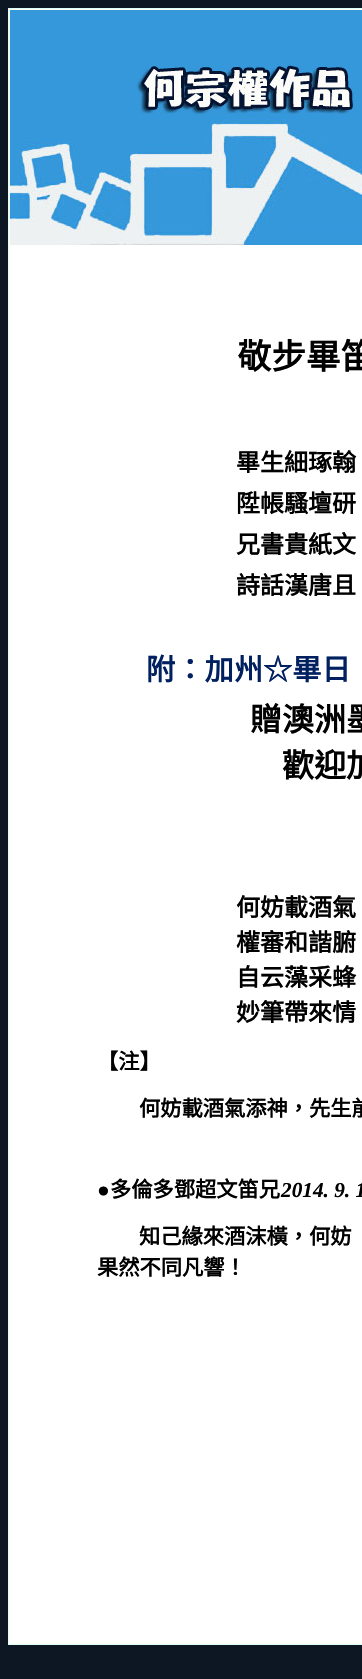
void draw(SkCanvas* canvas) {
  SkPaint paint;
  paint.setAntiAlias(true);
  auto face = [&](const char* family, int weight, float size, bool italic = false) {
    SkFontStyle style(weight, SkFontStyle::kNormal_Width,
      italic ? SkFontStyle::kItalic_Slant : SkFontStyle::kUpright_Slant);
    SkFont result(fontMgr->matchFamilyStyle(family, style), size);
    result.setSubpixel(true);
    return result;
  };
  auto paste = [&](const char* path, float x, float y, float w, float h) {
    auto image = SkImages::DeferredFromEncodedData(SkData::MakeFromFileName(path));
    canvas->drawImageRect(image, SkRect::MakeXYWH(x, y, w, h), SkSamplingOptions());
  };
  canvas->clear(0xff0c1723);
  {
    const struct { float x, y, w, h; SkColor color; } items[] = {
      {9, 9, 353, 1635, 0xffffffec},
      {8, 8, 354, 1, 0xffddfdff},
      {8, 1644, 354, 1, 0xffddfdff},
      {8, 8, 1, 1637, 0xffddfdff},
      {10, 245, 352, 1398, 0xffffffff},
    };
    for (auto [x, y, w, h, color] : items) {
      paint.setColor(color);
      canvas->drawRect(SkRect::MakeXYWH(x, y, w, h), paint);
    }
  }
  paste("img/1.png", 10, 10, 352, 235);
  auto f0 = face("Noto Sans CJK TC", 700, 34.5f);
  paint.setColor(0xff000000);
  canvas->drawString("敬步畢笛", 237, 369, f0, paint);
  auto f1 = face("Noto Sans CJK TC", 700, 24);
  {
    const struct { const char* s; float x, y; } items[] = {
      {"畢生細琢翰", 236, 471},
      {"陞帳騷壇研", 236, 512},
      {"兄書貴紙文", 236, 553},
      {"詩話漢唐且", 236, 594},
    };
    for (auto [s, x, y] : items) {
      canvas->drawString(s, x, y, f1, paint);
    }
  }
  auto f2 = face("Noto Sans CJK TC", 700, 29.25f);
  paint.setColor(0xff002060);
  canvas->drawString("附：加州☆畢日", 146, 680, f2, paint);
  auto f3 = face("Noto Sans CJK TC", 700, 32);
  paint.setColor(0xff000000);
  canvas->drawString("贈澳洲墨", 250, 731, f3, paint);
  canvas->drawString("歡迎加", 282, 777, f3, paint);
  {
    const struct { const char* s; float x, y; } items[] = {
      {"何妨載酒氣", 236, 916},
      {"權審和諧腑", 236, 951},
      {"自云藻采蜂", 236, 986},
      {"妙筆帶來情", 236, 1021},
    };
    for (auto [s, x, y] : items) {
      canvas->drawString(s, x, y, f1, paint);
    }
  }
  auto f4 = face("Noto Sans CJK TC", 700, 21.25f);
  canvas->drawString("【注】", 97, 1069, f4, paint);
  canvas->drawString("何妨載酒氣添神，先生前", 139, 1116, f4, paint);
  auto f5 = face("Liberation Serif", 700, 21.25f);
  canvas->drawString("●", 97, 1197, f5, paint);
  canvas->drawString("多倫多鄧超文笛兄", 110, 1197, f4, paint);
  auto f6 = face("Liberation Serif", 700, 21.25f, true);
  canvas->drawString("2014. 9. 1", 281, 1197, f6, paint);
  canvas->drawString("知己緣來酒沫橫，何妨", 139, 1244, f4, paint);
  canvas->drawString("果然不同凡響！", 97, 1275, f4, paint);
}
